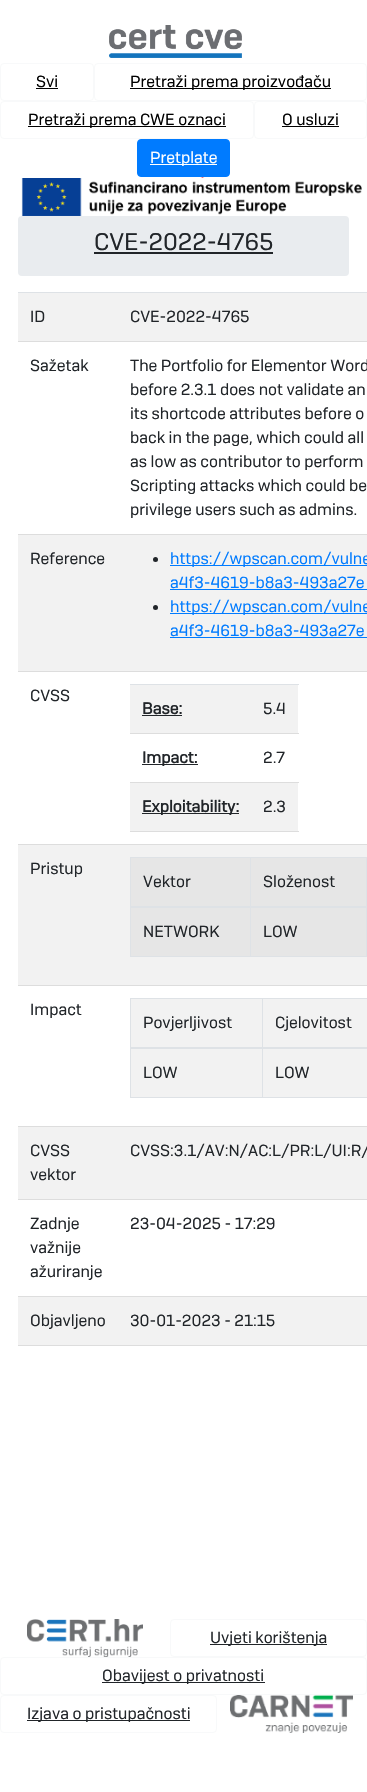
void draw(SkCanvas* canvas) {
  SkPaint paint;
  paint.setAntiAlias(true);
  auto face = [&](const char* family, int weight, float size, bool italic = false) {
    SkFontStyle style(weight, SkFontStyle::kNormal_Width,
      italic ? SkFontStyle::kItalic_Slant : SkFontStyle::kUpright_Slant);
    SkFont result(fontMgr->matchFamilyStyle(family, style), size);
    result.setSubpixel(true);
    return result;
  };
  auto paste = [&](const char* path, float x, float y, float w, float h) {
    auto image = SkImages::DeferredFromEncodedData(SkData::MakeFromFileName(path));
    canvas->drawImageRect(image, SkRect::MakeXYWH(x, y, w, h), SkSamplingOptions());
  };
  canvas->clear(0xffffffff);
  paste("img/1.png", 109, 25, 133, 33);
  paint.setStroke(true);
  paint.setStrokeWidth(1);
  paint.setColor(0xfff8f9fa);
  canvas->drawRoundRect(SkRect::MakeXYWH(0.5f, 63.5f, 93, 37), 3.5f, 3.5f, paint);
  paint.setStroke(false);
  paint.setColor(0xff000000);
  canvas->drawRect(SkRect::MakeXYWH(36, 88, 22, 1), paint);
  paint.setStroke(true);
  paint.setColor(0xfff8f9fa);
  canvas->drawRoundRect(SkRect::MakeXYWH(94.5f, 63.5f, 272, 37), 3.5f, 3.5f, paint);
  paint.setStroke(false);
  paint.setColor(0xff000000);
  canvas->drawRect(SkRect::MakeXYWH(130, 88, 201, 1), paint);
  paint.setStroke(true);
  paint.setColor(0xfff8f9fa);
  canvas->drawRoundRect(SkRect::MakeXYWH(0.5f, 101.5f, 253, 37), 3.5f, 3.5f, paint);
  paint.setStroke(false);
  paint.setColor(0xff000000);
  canvas->drawRect(SkRect::MakeXYWH(28, 126, 198, 1), paint);
  paint.setStroke(true);
  paint.setColor(0xfff8f9fa);
  canvas->drawRoundRect(SkRect::MakeXYWH(254.5f, 101.5f, 112, 37), 3.5f, 3.5f, paint);
  paint.setStroke(false);
  paint.setColor(0xff000000);
  canvas->drawRect(SkRect::MakeXYWH(282, 126, 57, 1), paint);
  paint.setColor(0xff007bff);
  canvas->drawRoundRect(SkRect::MakeXYWH(137.5f, 139.5f, 92, 37), 3.5f, 3.5f, paint);
  paint.setStroke(true);
  canvas->drawRoundRect(SkRect::MakeXYWH(137.5f, 139.5f, 92, 37), 3.5f, 3.5f, paint);
  paint.setStroke(false);
  paint.setColor(0xffffffff);
  canvas->drawRect(SkRect::MakeXYWH(150, 164, 67, 1), paint);
  paste("img/2.png", 21, 177, 341, 39);
  paint.setColor(0xffe9ecef);
  canvas->drawRoundRect(SkRect::MakeXYWH(18, 216, 331, 60), 4, 4, paint);
  {
    const struct { float x, y, w, h; SkColor color; } items[] = {
      {94, 252, 179, 2, 0xff212529},
      {18, 293, 349, 48, 0xfff2f2f2},
      {18, 292, 349, 1, 0xffdee2e6},
      {18, 341, 349, 1, 0xffdddddd},
      {18, 534, 349, 1, 0xffdddddd},
      {18, 535, 349, 136, 0xfff2f2f2},
      {18, 671, 349, 1, 0xffdddddd},
    };
    for (auto [x, y, w, h, color] : items) {
      paint.setColor(color);
      canvas->drawRect(SkRect::MakeXYWH(x, y, w, h), paint);
    }
  }
  paint.setColor(0xff212529);
  canvas->drawCircle(155.5f, 559.5f, 2.5f, paint);
  paint.setColor(0xff007bff);
  canvas->drawRect(SkRect::MakeXYWH(170, 565, 197, 1), paint);
  canvas->drawRect(SkRect::MakeXYWH(170, 589, 197, 1), paint);
  paint.setColor(0xff212529);
  canvas->drawCircle(155.5f, 607.5f, 2.5f, paint);
  {
    const struct { float x, y, w, h; SkColor color; } items[] = {
      {170, 613, 197, 1, 0xff007bff},
      {170, 637, 197, 1, 0xff007bff},
      {18, 844, 349, 1, 0xffdddddd},
      {130, 685, 168, 48, 0xfff2f2f2},
      {142, 715, 40, 1, 0xff212529},
      {130, 684, 169, 1, 0xffdee2e6},
      {130, 733, 169, 1, 0xffdddddd},
      {142, 764, 56, 1, 0xff212529},
      {130, 782, 169, 1, 0xffdddddd},
      {130, 783, 168, 48, 0xfff2f2f2},
      {142, 813, 97, 1, 0xff212529},
      {130, 831, 169, 1, 0xffdddddd},
      {18, 845, 349, 140, 0xfff2f2f2},
      {18, 985, 349, 1, 0xffdddddd},
      {130, 857, 237, 1, 0xffdee2e6},
      {130, 956, 237, 1, 0xffdee2e6},
      {130, 857, 1, 100, 0xffdee2e6},
      {131, 858, 235, 48, 0xffe6e6e6},
      {131, 908, 235, 48, 0xffe6e6e6},
      {250, 857, 1, 100, 0xffdee2e6},
      {366, 857, 1, 100, 0xffdee2e6},
      {130, 906, 237, 2, 0xffdee2e6},
      {18, 1126, 349, 1, 0xffdddddd},
      {130, 998, 237, 1, 0xffdee2e6},
      {130, 1097, 237, 1, 0xffdee2e6},
      {130, 998, 1, 100, 0xffdee2e6},
      {131, 999, 236, 48, 0xfff2f2f2},
      {131, 1049, 236, 48, 0xfff2f2f2},
      {262, 998, 1, 100, 0xffdee2e6},
      {130, 1047, 237, 2, 0xffdee2e6},
      {18, 1127, 349, 72, 0xfff2f2f2},
      {18, 1199, 349, 1, 0xffdddddd},
      {18, 1296, 349, 1, 0xffdddddd},
      {18, 1297, 349, 48, 0xfff2f2f2},
      {18, 1345, 349, 1, 0xffdddddd},
    };
    for (auto [x, y, w, h, color] : items) {
      paint.setColor(color);
      canvas->drawRect(SkRect::MakeXYWH(x, y, w, h), paint);
    }
  }
  paste("img/3.png", 27, 1619, 116, 38);
  paint.setStroke(true);
  paint.setColor(0xfff8f9fa);
  canvas->drawRoundRect(SkRect::MakeXYWH(170.5f, 1619.5f, 196, 37), 3.5f, 3.5f, paint);
  paint.setStroke(false);
  paint.setColor(0xff212529);
  canvas->drawRect(SkRect::MakeXYWH(210, 1644, 117, 1), paint);
  paint.setStroke(true);
  paint.setColor(0xfff8f9fa);
  canvas->drawRoundRect(SkRect::MakeXYWH(0.5f, 1657.5f, 366, 37), 3.5f, 3.5f, paint);
  paint.setStroke(false);
  paint.setColor(0xff212529);
  canvas->drawRect(SkRect::MakeXYWH(102, 1682, 163, 1), paint);
  paint.setStroke(true);
  paint.setColor(0xfff8f9fa);
  canvas->drawRoundRect(SkRect::MakeXYWH(0.5f, 1695.5f, 216, 37), 3.5f, 3.5f, paint);
  paint.setStroke(false);
  paint.setColor(0xff212529);
  canvas->drawRect(SkRect::MakeXYWH(27, 1720, 163, 1), paint);
  paste("img/4.png", 230, 1695, 123, 38);
  auto f0 = face("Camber", 400, 16);
  paint.setColor(0xff000000);
  {
    const struct { const char* s; float x, y; } items[] = {
      {"Svi", 36, 87},
      {"Pretraži prema proizvođaču", 130, 87},
      {"Pretraži prema CWE oznaci", 28, 125},
      {"O usluzi", 282, 125},
    };
    for (auto [s, x, y] : items) {
      canvas->drawString(s, x, y, f0, paint);
    }
  }
  paint.setColor(0xffffffff);
  canvas->drawString("Pretplate", 150, 163, f0, paint);
  auto f1 = face("Camber", 400, 24);
  paint.setColor(0xff212529);
  canvas->drawString("CVE-2022-4765", 94, 250, f1, paint);
  {
    const struct { const char* s; float x, y; } items[] = {
      {"ID", 30, 322},
      {"CVE-2022-4765", 130, 322},
      {"Sažetak", 30, 371},
      {"The Portfolio for Elementor Word", 130, 371},
      {"before 2.3.1 does not validate an", 130, 395},
      {"its shortcode attributes before o", 130, 419},
      {"back in the page, which could all", 130, 443},
      {"as low as contributor to perform", 130, 467},
      {"Scripting attacks which could be", 130, 491},
      {"privilege users such as admins.", 130, 515},
      {"Reference", 30, 564},
    };
    for (auto [s, x, y] : items) {
      canvas->drawString(s, x, y, f0, paint);
    }
  }
  paint.setColor(0xff007bff);
  {
    const struct { const char* s; float x, y; } items[] = {
      {"https://wpscan.com/vulne", 170, 564},
      {"a4f3-4619-b8a3-493a27e", 170, 588},
      {"https://wpscan.com/vulne", 170, 612},
      {"a4f3-4619-b8a3-493a27e", 170, 636},
    };
    for (auto [s, x, y] : items) {
      canvas->drawString(s, x, y, f0, paint);
    }
  }
  paint.setColor(0xff212529);
  canvas->drawString("CVSS", 30, 701, f0, paint);
  auto f2 = face("Camber", 700, 16);
  canvas->drawString("Base:", 142, 714, f2, paint);
  canvas->drawString("5.4", 263, 714, f0, paint);
  canvas->drawString("Impact:", 142, 763, f2, paint);
  canvas->drawString("2.7", 263, 763, f0, paint);
  canvas->drawString("Exploitability:", 142, 812, f2, paint);
  {
    const struct { const char* s; float x, y; } items[] = {
      {"2.3", 263, 812},
      {"Pristup", 30, 874},
      {"Vektor", 143, 887},
      {"Složenost", 263, 887},
      {"NETWORK", 143, 937},
      {"LOW", 263, 937},
      {"Impact", 30, 1015},
      {"Povjerljivost", 143, 1028},
      {"Cjelovitost", 275, 1028},
      {"LOW", 143, 1078},
      {"LOW", 275, 1078},
      {"CVSS", 30, 1156},
      {"vektor", 30, 1180},
      {"CVSS:3.1/AV:N/AC:L/PR:L/UI:R/", 130, 1156},
      {"Zadnje", 30, 1229},
      {"važnije", 30, 1253},
      {"ažuriranje", 30, 1277},
      {"23-04-2025 - 17:29", 130, 1229},
      {"Objavljeno", 30, 1326},
      {"30-01-2023 - 21:15", 130, 1326},
      {"Uvjeti korištenja", 210, 1643},
      {"Obavijest o privatnosti", 102, 1681},
      {"Izjava o pristupačnosti", 27, 1719},
    };
    for (auto [s, x, y] : items) {
      canvas->drawString(s, x, y, f0, paint);
    }
  }
}
